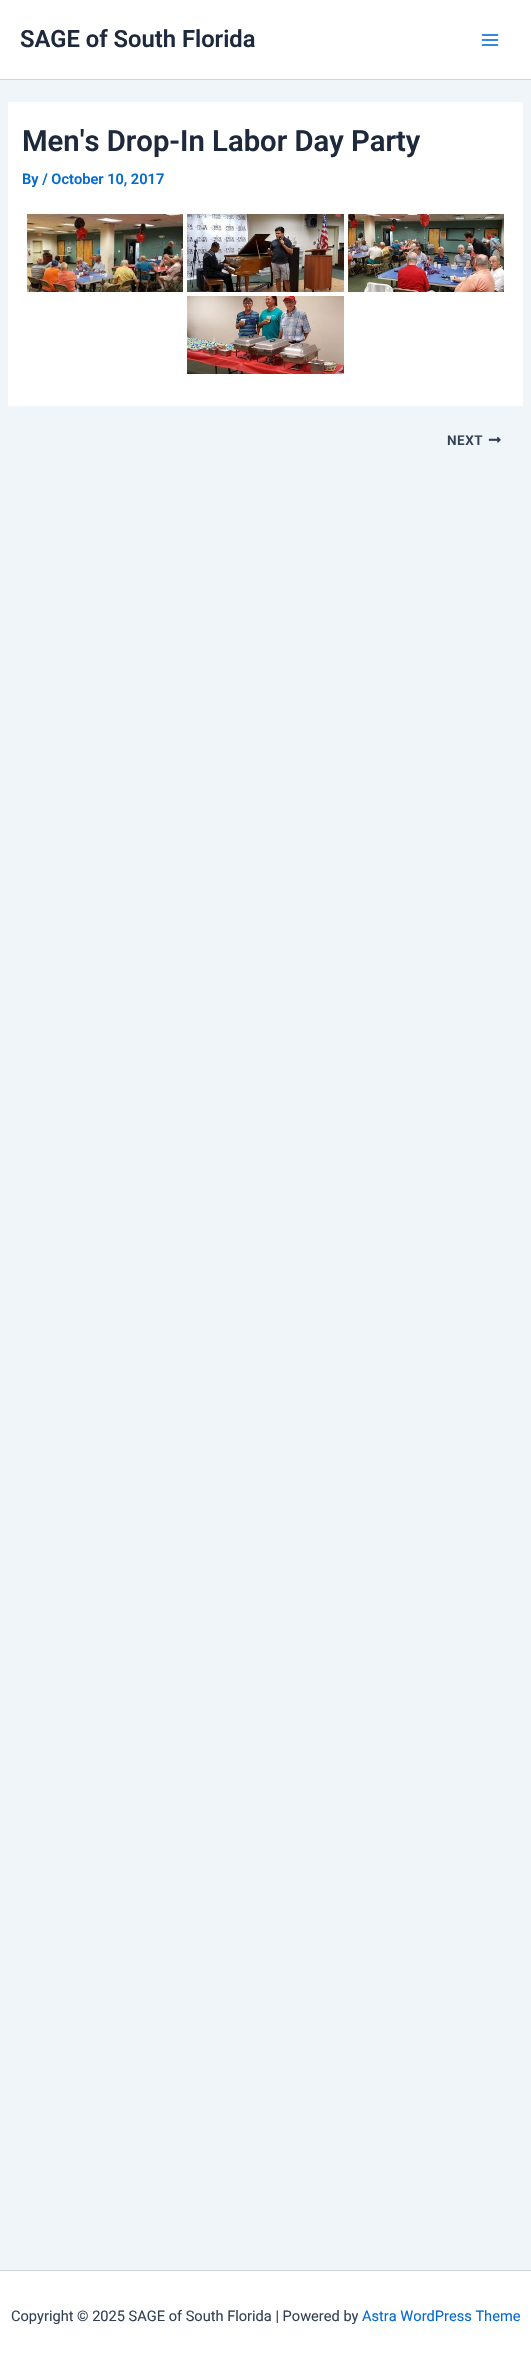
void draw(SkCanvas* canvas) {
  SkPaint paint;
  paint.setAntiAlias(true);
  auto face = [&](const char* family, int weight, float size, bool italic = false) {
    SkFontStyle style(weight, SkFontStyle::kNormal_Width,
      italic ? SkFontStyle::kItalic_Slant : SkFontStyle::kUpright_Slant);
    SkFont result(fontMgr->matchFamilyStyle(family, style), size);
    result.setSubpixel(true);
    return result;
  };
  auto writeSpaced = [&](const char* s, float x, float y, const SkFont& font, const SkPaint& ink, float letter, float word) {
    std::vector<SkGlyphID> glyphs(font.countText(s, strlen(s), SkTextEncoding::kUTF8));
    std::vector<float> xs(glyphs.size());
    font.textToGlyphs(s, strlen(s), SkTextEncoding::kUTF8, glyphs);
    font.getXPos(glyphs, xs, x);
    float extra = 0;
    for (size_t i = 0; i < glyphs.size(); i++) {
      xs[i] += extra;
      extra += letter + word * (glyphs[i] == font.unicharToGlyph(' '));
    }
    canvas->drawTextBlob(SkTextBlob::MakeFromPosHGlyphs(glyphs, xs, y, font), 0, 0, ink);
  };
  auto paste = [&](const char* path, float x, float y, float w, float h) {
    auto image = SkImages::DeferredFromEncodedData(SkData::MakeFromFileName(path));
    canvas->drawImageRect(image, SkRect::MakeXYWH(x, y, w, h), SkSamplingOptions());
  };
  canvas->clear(0xfff0f5fa);
  paint.setColor(0xffffffff);
  canvas->drawRect(SkRect::MakeXYWH(0, 0, 531, 79), paint);
  paint.setColor(0xffd1d5db);
  canvas->drawRect(SkRect::MakeXYWH(0, 79, 531, 1), paint);
  paste("img/1.png", 481, 34, 18, 12);
  paint.setColor(0xffffffff);
  canvas->drawRect(SkRect::MakeXYWH(8, 102, 515, 304), paint);
  paste("img/2.png", 27, 214, 156, 78);
  paste("img/3.png", 187, 214, 157, 78);
  paste("img/4.png", 348, 214, 156, 78);
  paste("img/5.png", 187, 296, 157, 78);
  paste("img/6.png", 488, 436, 13, 7);
  canvas->drawRect(SkRect::MakeXYWH(0, 2271, 531, 100), paint);
  paint.setColor(0xffd1d5db);
  canvas->drawRect(SkRect::MakeXYWH(0, 2270, 531, 1), paint);
  auto f0 = face("Roboto", 600, 23.75f);
  paint.setColor(0xff1e293b);
  canvas->drawString("SAGE of South Florida", 20, 47, f0, paint);
  auto f1 = face("Roboto", 600, 29.25f);
  canvas->drawString("Men's Drop-In Labor Day Party", 22, 151, f1, paint);
  auto f2 = face("Roboto", 600, 14.6f);
  paint.setColor(0xff046bd2);
  canvas->drawString("By / October 10, 2017", 22, 184, f2, paint);
  auto f3 = face("Roboto", 600, 13.5f);
  paint.setColor(0xff334155);
  writeSpaced("NEXT", 447, 445, f3, paint, 0.5f, 0);
  auto f4 = face("Roboto", 400, 14.6f);
  canvas->drawString("Copyright © 2025 SAGE of South Florida | Powered by", 11, 2321, f4, paint);
  paint.setColor(0xff046bd2);
  canvas->drawString("Astra WordPress Theme", 362, 2321, f4, paint);
}
